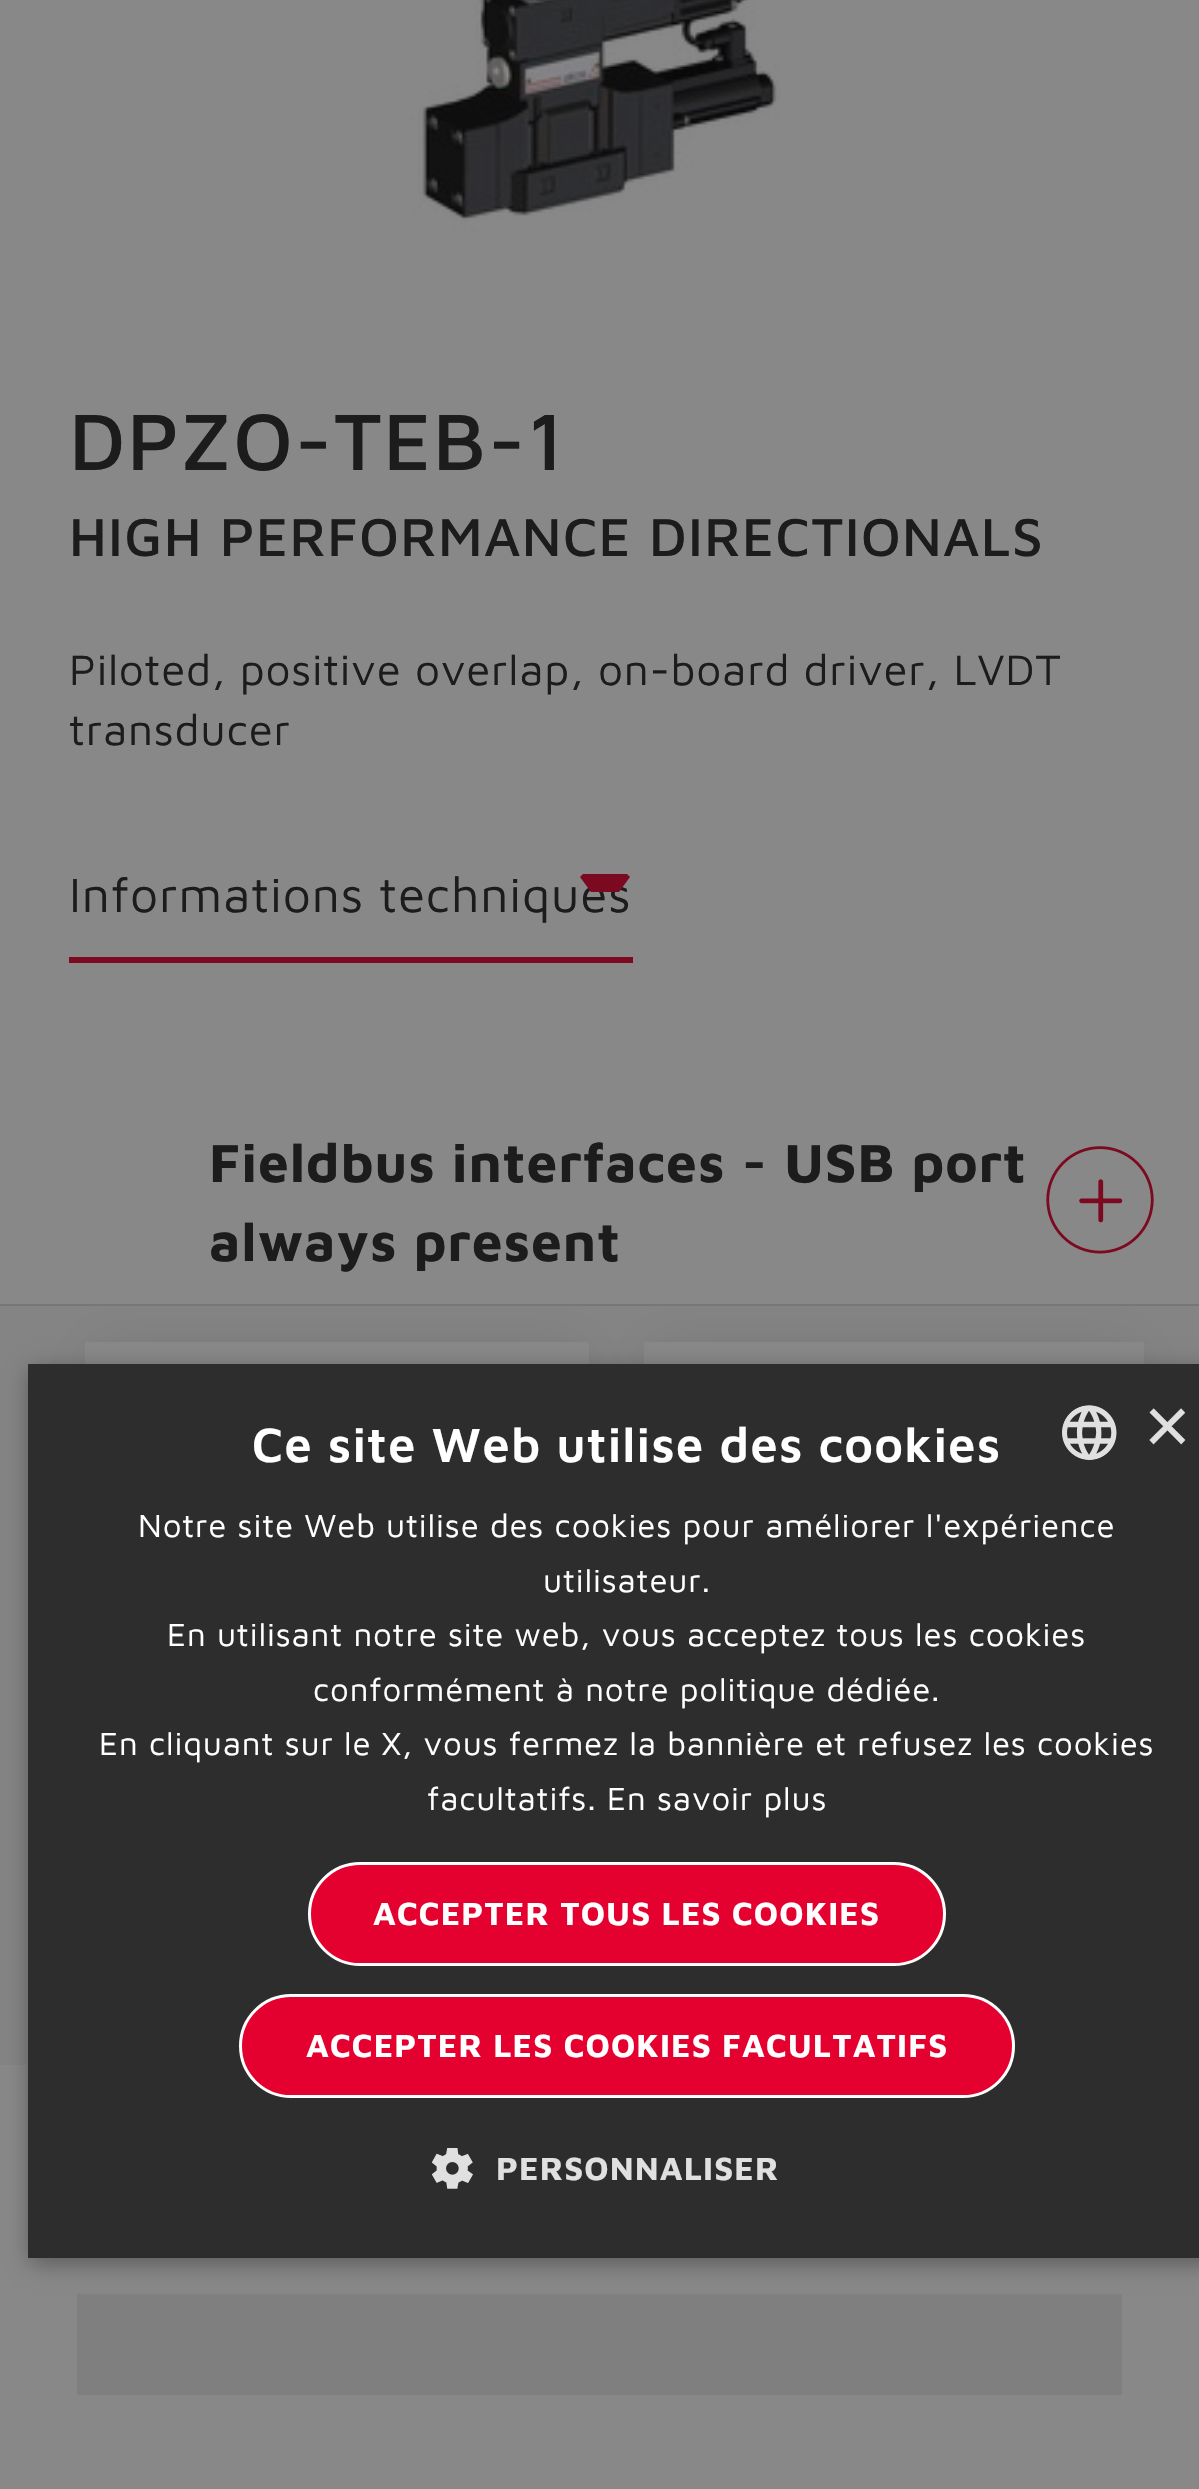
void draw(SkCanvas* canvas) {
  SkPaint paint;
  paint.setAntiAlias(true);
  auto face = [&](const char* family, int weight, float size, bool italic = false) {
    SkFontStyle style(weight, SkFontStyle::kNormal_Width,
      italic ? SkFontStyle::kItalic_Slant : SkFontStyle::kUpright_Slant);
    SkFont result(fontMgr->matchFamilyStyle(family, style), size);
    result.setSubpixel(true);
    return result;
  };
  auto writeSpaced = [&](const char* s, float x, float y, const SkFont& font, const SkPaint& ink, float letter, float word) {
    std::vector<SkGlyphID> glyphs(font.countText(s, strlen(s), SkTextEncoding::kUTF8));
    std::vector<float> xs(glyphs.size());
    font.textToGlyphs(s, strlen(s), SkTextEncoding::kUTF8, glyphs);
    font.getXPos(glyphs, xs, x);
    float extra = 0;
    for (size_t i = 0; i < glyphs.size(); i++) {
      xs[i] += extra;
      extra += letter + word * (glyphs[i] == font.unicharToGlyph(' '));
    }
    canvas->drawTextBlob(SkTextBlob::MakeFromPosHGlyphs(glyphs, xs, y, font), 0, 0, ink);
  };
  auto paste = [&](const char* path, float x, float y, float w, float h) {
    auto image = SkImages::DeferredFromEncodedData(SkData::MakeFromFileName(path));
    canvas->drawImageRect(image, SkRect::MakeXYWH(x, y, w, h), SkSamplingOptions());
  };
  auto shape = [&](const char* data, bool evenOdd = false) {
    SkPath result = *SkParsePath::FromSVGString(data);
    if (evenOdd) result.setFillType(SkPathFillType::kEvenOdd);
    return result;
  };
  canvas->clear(0xff888888);
  paste("img/1.png", 410, 0, 370, 234);
  paint.setColor(0xff7b091f);
  canvas->drawRect(SkRect::MakeXYWH(69, 957, 564, 6), paint);
  paint.setColor(0xff777777);
  canvas->drawRect(SkRect::MakeXYWH(0, 1304, 1199, 2), paint);
  paste("img/2.png", 1046, 1146, 108, 108);
  paint.setColor(0xff848484);
  canvas->drawRect(SkRect::MakeXYWH(0, 1306, 1199, 759), paint);
  canvas->save();
  canvas->clipRect(SkRect::MakeXYWH(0, 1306, 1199, 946));
  paint.setColor(0xff727272);
  paint.setMaskFilter(SkMaskFilter::MakeBlur(kNormal_SkBlurStyle, 27.5f));
  canvas->drawRect(SkRect::MakeXYWH(99, 1356, 476, 718), paint);
  paint.setMaskFilter(nullptr);
  canvas->restore();
  paint.setColor(0xff888888);
  canvas->drawRect(SkRect::MakeXYWH(85, 1342, 504, 22), paint);
  canvas->save();
  canvas->clipRect(SkRect::MakeXYWH(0, 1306, 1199, 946));
  paint.setColor(0xff727272);
  paint.setMaskFilter(SkMaskFilter::MakeBlur(kNormal_SkBlurStyle, 27.5f));
  canvas->drawRect(SkRect::MakeXYWH(657, 1356, 473, 718), paint);
  paint.setMaskFilter(nullptr);
  canvas->restore();
  {
    const struct { float x, y, w, h; SkColor color; } items[] = {
      {644, 1342, 500, 22, 0xff888888},
      {87, 2065, 1055, 31, 0xff868686},
      {77, 2294, 1045, 101, 0xff7f7f7f},
    };
    for (auto [x, y, w, h, color] : items) {
      paint.setColor(color);
      canvas->drawRect(SkRect::MakeXYWH(x, y, w, h), paint);
    }
  }
  paint.setColor(0x59000000);
  paint.setMaskFilter(SkMaskFilter::MakeBlur(kNormal_SkBlurStyle, 11));
  canvas->drawRect(SkRect::MakeXYWH(30, 1370, 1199, 893), paint);
  paint.setMaskFilter(nullptr);
  paint.setColor(0xff2d2d2d);
  canvas->drawRect(SkRect::MakeXYWH(28, 1364, 1171, 894), paint);
  paste("img/3.png", 1062, 1405, 55, 55);
  paint.setColor(0xffe4012f);
  canvas->drawRoundRect(SkRect::MakeXYWH(309.5f, 1863.5f, 635, 101), 50.5f, 50.5f, paint);
  paint.setStroke(true);
  paint.setStrokeWidth(3);
  paint.setColor(0xffffffff);
  canvas->drawRoundRect(SkRect::MakeXYWH(309.5f, 1863.5f, 635, 101), 50.5f, 50.5f, paint);
  paint.setStroke(false);
  paint.setColor(0xffe4012f);
  canvas->drawRoundRect(SkRect::MakeXYWH(240.5f, 1995.5f, 773, 101), 50.5f, 50.5f, paint);
  paint.setStroke(true);
  paint.setColor(0xffffffff);
  canvas->drawRoundRect(SkRect::MakeXYWH(240.5f, 1995.5f, 773, 101), 50.5f, 50.5f, paint);
  paste("img/4.png", 432, 2148, 41, 41);
  auto f0 = face("Maven Pro", 500, 82.5f);
  paint.setStroke(false);
  paint.setColor(0xff1d1c1c);
  writeSpaced("DPZO-TEB-1", 69, 470, f0, paint, 1.3f, 0);
  auto f1 = face("Maven Pro", 500, 55);
  writeSpaced("HIGH PERFORMANCE DIRECTIONALS", 69, 556, f1, paint, 1.3f, 0);
  auto f2 = face("Maven Pro", 400, 44);
  writeSpaced("Piloted, positive overlap, on-board driver, LVDT", 69, 685, f2, paint, 0.7f, 0);
  writeSpaced("transducer", 69, 745, f2, paint, 0.7f, 0);
  auto f3 = face("Maven Pro", 400, 49.5f);
  writeSpaced("Informations techniques", 69, 912, f3, paint, 0.8f, 0);
  paint.setColor(0xff7b091f);
  canvas->drawPath(shape("M580 877L583 874H627L630 877L619 892H591Z"), paint);
  auto f4 = face("Maven Pro", 700, 55);
  paint.setColor(0xff1d1c1c);
  writeSpaced("Fieldbus interfaces - USB port", 209, 1182, f4, paint, 0.9f, 0);
  writeSpaced("always present", 209, 1261, f4, paint, 0.9f, 0);
  auto f5 = face("Maven Pro", 600, 49.5f);
  paint.setColor(0xffffffff);
  writeSpaced("Ce site Web utilise des cookies", 252, 1462, f5, paint, 1.1f, 0);
  auto f6 = face("Liberation Sans", 400, 80);
  paint.setColor(0xffe0e0e0);
  canvas->drawString("×", 1144, 1453, f6, paint);
  auto f7 = face("Maven Pro", 400, 33);
  paint.setColor(0xffffffff);
  {
    const struct { const char* s; float x, y; } items[] = {
      {"Notre site Web utilise des cookies pour améliorer l'expérience", 138, 1537},
      {"utilisateur.", 543, 1592},
      {"En utilisant notre site web, vous acceptez tous les cookies", 167, 1646},
      {"conformément à notre politique dédiée.", 313, 1701},
      {"En cliquant sur le X, vous fermez la bannière et refusez les cookies", 99, 1755},
      {"facultatifs. En savoir plus", 427, 1810},
    };
    for (auto [s, x, y] : items) {
      writeSpaced(s, x, y, f7, paint, 0.82f, 0);
    }
  }
  auto f8 = face("Maven Pro", 700, 33);
  writeSpaced("ACCEPTER TOUS LES COOKIES", 373, 1925, f8, paint, 1.1f, 0);
  writeSpaced("ACCEPTER LES COOKIES FACULTATIFS", 306, 2057, f8, paint, 1.1f, 0);
  paint.setColor(0xffe0e0e0);
  writeSpaced("PERSONNALISER", 496, 2180, f8, paint, 1.1f, 0);
}
